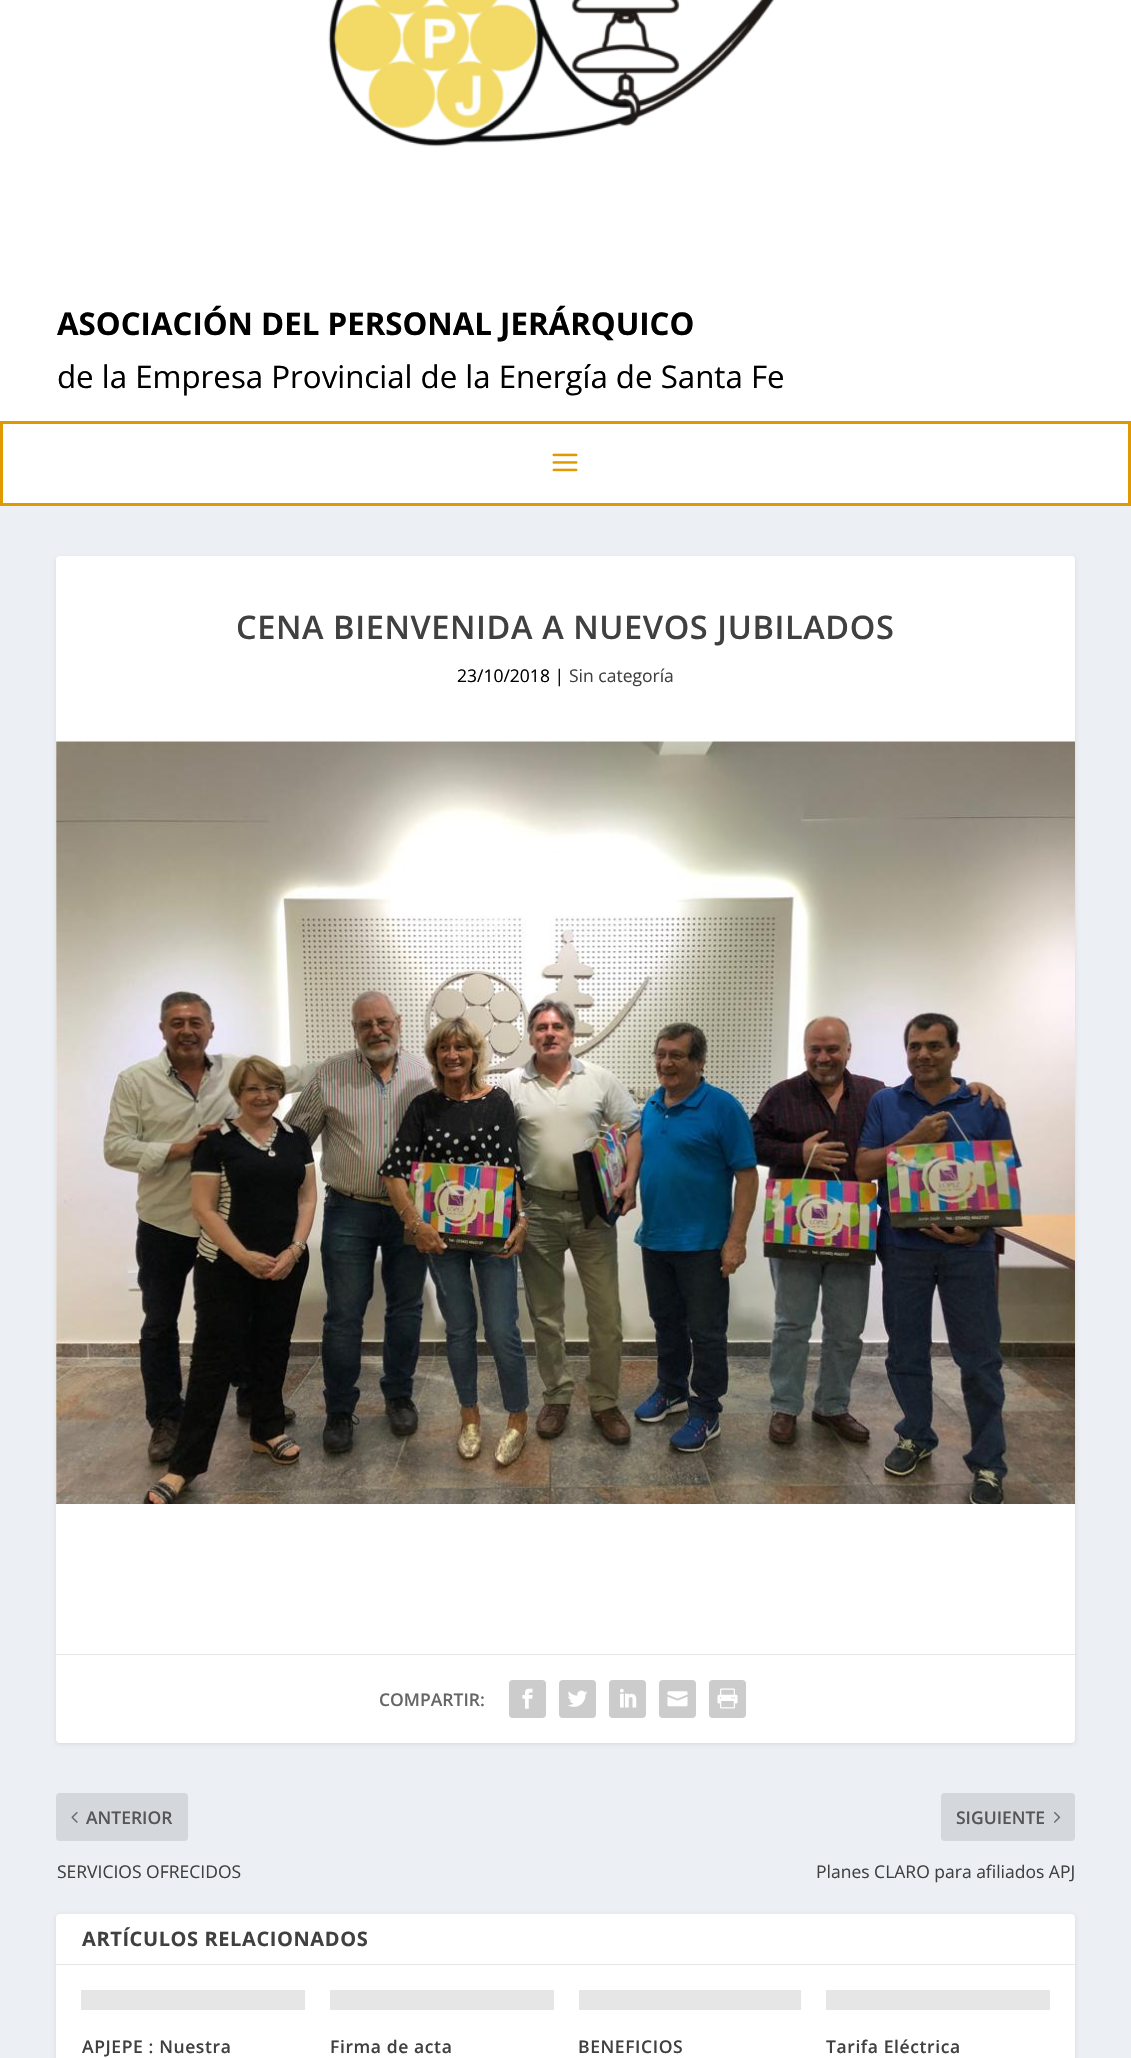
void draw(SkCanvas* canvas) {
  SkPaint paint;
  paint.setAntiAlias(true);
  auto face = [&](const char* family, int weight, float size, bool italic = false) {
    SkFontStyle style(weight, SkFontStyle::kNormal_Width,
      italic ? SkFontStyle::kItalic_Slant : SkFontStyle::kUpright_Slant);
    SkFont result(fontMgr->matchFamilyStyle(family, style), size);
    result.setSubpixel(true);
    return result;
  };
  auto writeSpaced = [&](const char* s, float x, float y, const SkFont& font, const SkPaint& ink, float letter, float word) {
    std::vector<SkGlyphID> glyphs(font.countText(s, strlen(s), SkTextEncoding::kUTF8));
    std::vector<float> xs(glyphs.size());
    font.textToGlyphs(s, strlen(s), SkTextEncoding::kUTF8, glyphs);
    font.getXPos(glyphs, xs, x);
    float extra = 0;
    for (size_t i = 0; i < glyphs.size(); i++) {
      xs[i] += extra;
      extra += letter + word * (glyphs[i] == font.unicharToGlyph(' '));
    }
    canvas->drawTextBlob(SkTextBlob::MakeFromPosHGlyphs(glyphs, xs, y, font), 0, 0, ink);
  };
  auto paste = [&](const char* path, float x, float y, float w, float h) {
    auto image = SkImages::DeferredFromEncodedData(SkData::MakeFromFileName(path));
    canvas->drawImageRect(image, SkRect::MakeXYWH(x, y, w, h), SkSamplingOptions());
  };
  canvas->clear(0xffecf0f5);
  paint.setColor(0xffffffff);
  canvas->drawRect(SkRect::MakeXYWH(0, 0, 1131, 421), paint);
  paste("img/1.png", 328, 0, 447, 147);
  canvas->drawRect(SkRect::MakeXYWH(1.5f, 422.5f, 1128, 82), paint);
  paint.setStroke(true);
  paint.setStrokeWidth(3);
  paint.setColor(0xffe09900);
  canvas->drawRect(SkRect::MakeXYWH(1.5f, 422.5f, 1128, 82), paint);
  paste("img/2.png", 552, 453, 26, 19);
  paint.setStroke(false);
  paint.setColor(0x1a000000);
  paint.setMaskFilter(SkMaskFilter::MakeBlur(kNormal_SkBlurStyle, 2));
  canvas->drawRoundRect(SkRect::MakeXYWH(56, 558, 1019, 1186), 4, 4, paint);
  paint.setMaskFilter(nullptr);
  paint.setColor(0xffffffff);
  canvas->drawRoundRect(SkRect::MakeXYWH(56, 556, 1019, 1187), 4, 4, paint);
  paste("img/3.png", 56, 741, 1019, 763);
  paint.setColor(0xffe6e6e6);
  canvas->drawRect(SkRect::MakeXYWH(56, 1654, 1019, 1), paint);
  paint.setColor(0xffcccccc);
  canvas->drawRoundRect(SkRect::MakeXYWH(509, 1680, 37, 38), 4, 4, paint);
  paste("img/4.png", 522, 1688, 11, 21);
  canvas->drawRoundRect(SkRect::MakeXYWH(559, 1680, 37, 38), 4, 4, paint);
  paste("img/5.png", 568, 1690, 20, 17);
  canvas->drawRoundRect(SkRect::MakeXYWH(609, 1680, 37, 38), 4, 4, paint);
  paste("img/6.png", 620, 1688, 17, 20);
  canvas->drawRoundRect(SkRect::MakeXYWH(659, 1680, 37, 38), 4, 4, paint);
  paste("img/7.png", 667, 1691, 21, 16);
  canvas->drawRoundRect(SkRect::MakeXYWH(709, 1680, 37, 38), 4, 4, paint);
  paste("img/8.png", 717, 1688, 21, 21);
  paint.setColor(0xffd4d8dd);
  canvas->drawRoundRect(SkRect::MakeXYWH(56, 1793, 132, 48), 4, 4, paint);
  paste("img/9.png", 71, 1812, 7, 11);
  canvas->drawRoundRect(SkRect::MakeXYWH(941, 1793, 134, 48), 4, 4, paint);
  paste("img/10.png", 1054, 1812, 7, 11);
  paint.setColor(0x1a000000);
  paint.setMaskFilter(SkMaskFilter::MakeBlur(kNormal_SkBlurStyle, 2));
  canvas->drawRoundRect(SkRect::MakeXYWH(56, 1915, 1019, 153), 4, 4, paint);
  paint.setMaskFilter(nullptr);
  paint.setColor(0xffffffff);
  canvas->drawRoundRect(SkRect::MakeXYWH(56, 1914, 1019, 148), 4, 4, paint);
  {
    const struct { float x, y, w, h; SkColor color; } items[] = {
      {56, 1964, 1019, 1, 0xffe6e6e6},
      {81, 1990, 224, 20, 0xffe6e6e6},
      {330, 1990, 224, 20, 0xffe6e6e6},
      {579, 1990, 222, 20, 0xffe6e6e6},
      {826, 1990, 224, 20, 0xffe6e6e6},
    };
    for (auto [x, y, w, h, color] : items) {
      paint.setColor(color);
      canvas->drawRect(SkRect::MakeXYWH(x, y, w, h), paint);
    }
  }
  auto f0 = face("Open Sans", 700, 31.25f);
  paint.setColor(0xff000000);
  canvas->drawString("ASOCIACIÓN DEL PERSONAL JERÁRQUICO", 57, 335, f0, paint);
  auto f1 = face("Open Sans", 400, 31.25f);
  canvas->drawString("de la Empresa Provincial de la Energía de Santa Fe", 57, 388, f1, paint);
  auto f2 = face("Open Sans", 600, 32.5f);
  paint.setColor(0xff404040);
  writeSpaced("CENA BIENVENIDA A NUEVOS JUBILADOS", 236, 639, f2, paint, 0.6f, 0);
  auto f3 = face("Open Sans", 400, 17.5f);
  paint.setColor(0xff000000);
  canvas->drawString("23/10/2018 |", 457, 682, f3, paint);
  paint.setColor(0xff404040);
  canvas->drawString("Sin categoría", 569, 682, f3, paint);
  auto f4 = face("Open Sans", 600, 17.5f);
  paint.setColor(0xff666666);
  canvas->drawString("COMPARTIR:", 379, 1706, f4, paint);
  paint.setColor(0xff555658);
  canvas->drawString("ANTERIOR", 86, 1824, f4, paint);
  paint.setColor(0xff404040);
  canvas->drawString("SERVICIOS OFRECIDOS", 57, 1878, f3, paint);
  paint.setColor(0xff555658);
  canvas->drawString("SIGUIENTE", 956, 1824, f4, paint);
  paint.setColor(0xff404040);
  canvas->drawString("Planes CLARO para afiliados APJ", 816, 1878, f3, paint);
  auto f5 = face("Open Sans", 700, 20);
  writeSpaced("ARTÍCULOS RELACIONADOS", 82, 1946, f5, paint, 0.6f, 0);
  {
    const struct { const char* s; float x, y; } items[] = {
      {"APJEPE : Nuestra", 82, 2053},
      {"Firma de acta", 330, 2053},
      {"BENEFICIOS", 578, 2053},
      {"Tarifa Eléctrica", 826, 2053},
    };
    for (auto [s, x, y] : items) {
      writeSpaced(s, x, y, f4, paint, 0.6f, 0);
    }
  }
}
